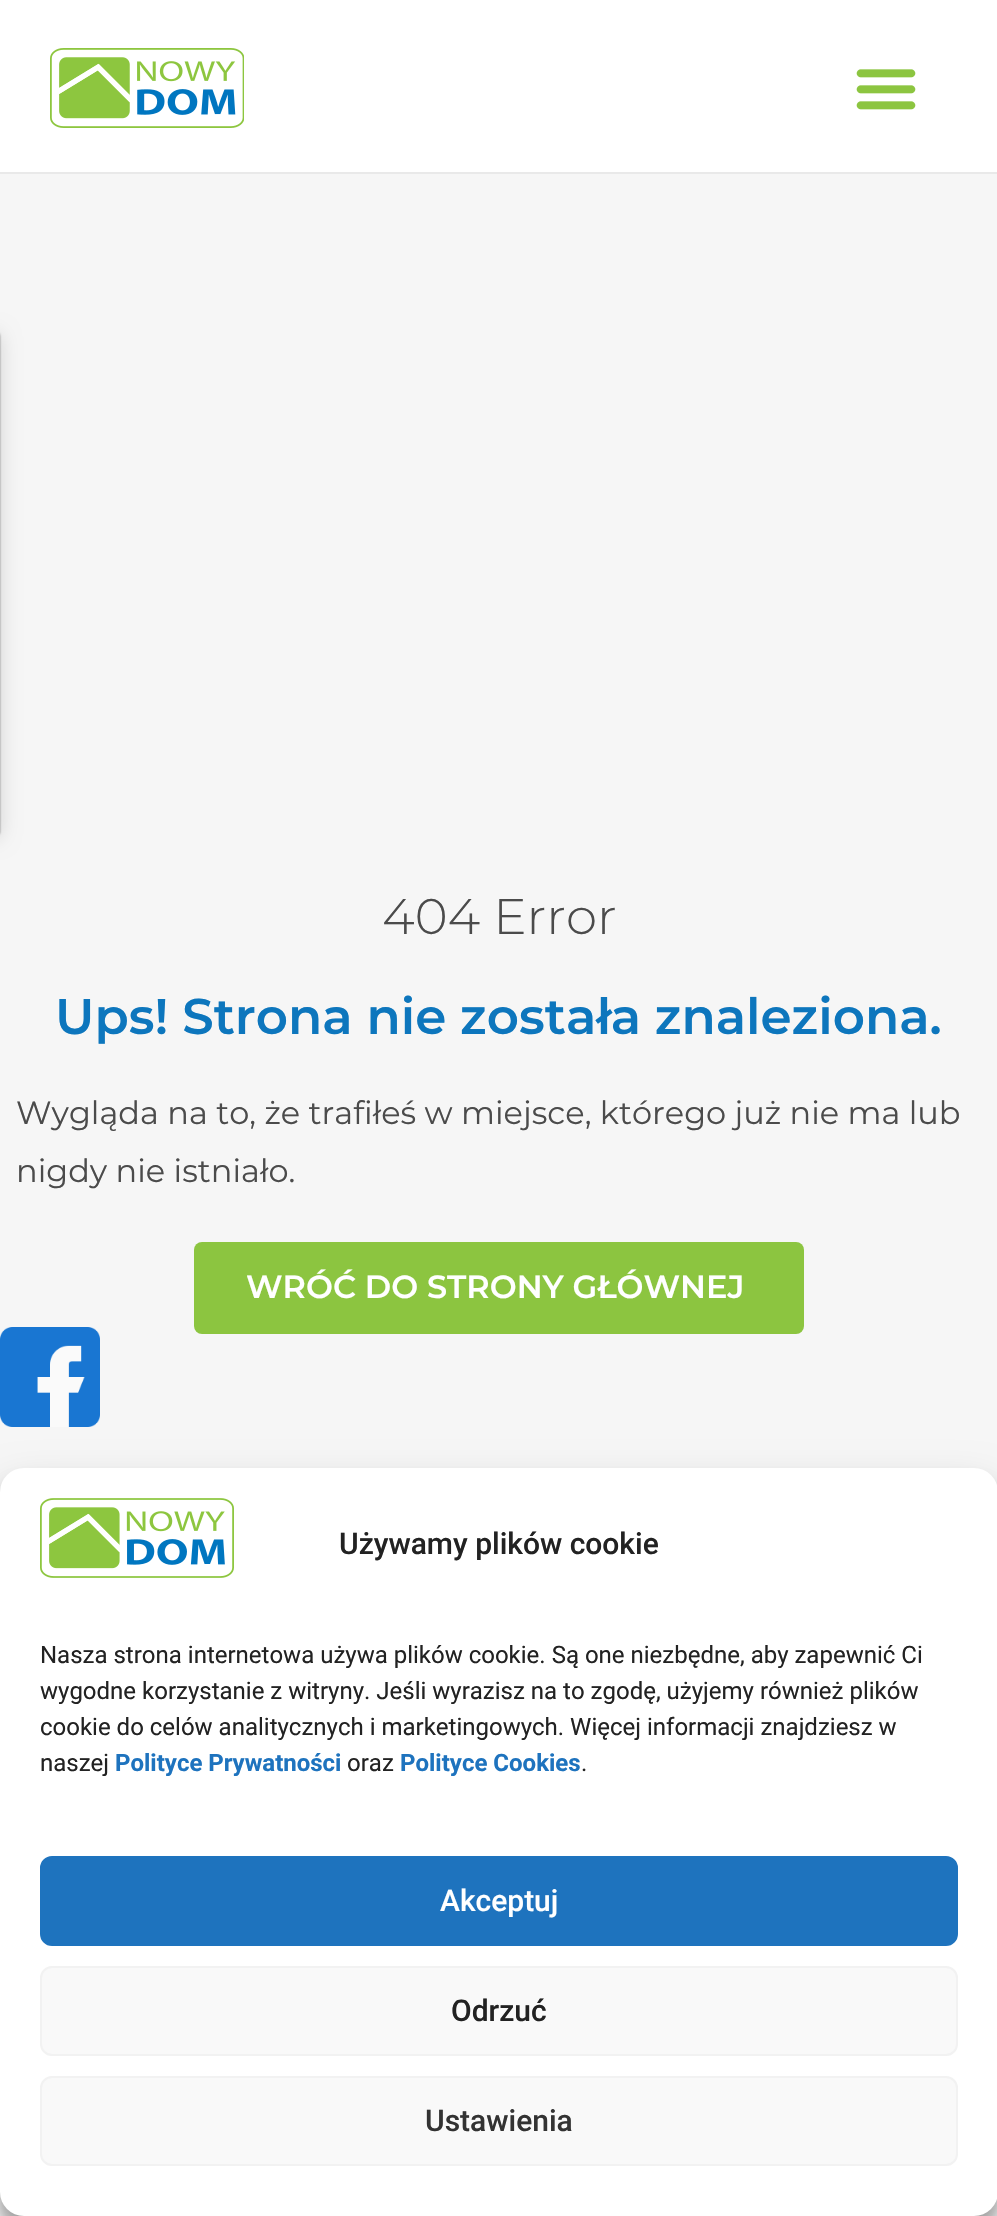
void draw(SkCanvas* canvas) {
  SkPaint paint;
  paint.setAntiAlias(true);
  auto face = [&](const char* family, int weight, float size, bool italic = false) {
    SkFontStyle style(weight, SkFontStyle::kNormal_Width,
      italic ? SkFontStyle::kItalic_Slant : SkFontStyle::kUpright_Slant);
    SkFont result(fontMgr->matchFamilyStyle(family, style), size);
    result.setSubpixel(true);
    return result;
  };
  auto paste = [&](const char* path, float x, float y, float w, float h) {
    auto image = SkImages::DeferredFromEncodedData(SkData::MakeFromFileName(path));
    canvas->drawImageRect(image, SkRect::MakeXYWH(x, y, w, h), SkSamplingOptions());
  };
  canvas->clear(0xffffffff);
  paint.setColor(0xffe9e9e9);
  canvas->drawRect(SkRect::MakeXYWH(0, 172, 997, 2), paint);
  paste("img/1.png", 50, 48, 194, 80);
  paste("img/2.png", 856, 69, 60, 41);
  paint.setColor(0xfff6f6f6);
  canvas->drawRect(SkRect::MakeXYWH(0, 174, 997, 2042), paint);
  paint.setColor(0x26000000);
  paint.setMaskFilter(SkMaskFilter::MakeBlur(kNormal_SkBlurStyle, 10));
  canvas->drawRoundRect(SkRect::MakeXYWH(-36, 334, 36, 504), 6, 6, paint);
  paint.setMaskFilter(nullptr);
  paint.setColor(0x80000000);
  paint.setMaskFilter(SkMaskFilter::MakeBlur(kNormal_SkBlurStyle, 1));
  canvas->drawRoundRect(SkRect::MakeXYWH(-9, 332, 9, 504), 6, 6, paint);
  paint.setMaskFilter(nullptr);
  paste("img/3.png", 0, 1327, 100, 100);
  paint.setColor(0xff8cc540);
  canvas->drawRoundRect(SkRect::MakeXYWH(194, 1242, 610, 92), 8, 8, paint);
  paint.setColor(0x3b000000);
  paint.setMaskFilter(SkMaskFilter::MakeBlur(kNormal_SkBlurStyle, 6));
  canvas->drawRoundRect(SkRect::MakeXYWH(0, 1480, 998, 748), 24, 24, paint);
  paint.setMaskFilter(nullptr);
  paint.setColor(0x30000000);
  paint.setMaskFilter(SkMaskFilter::MakeBlur(kNormal_SkBlurStyle, 20));
  canvas->drawRoundRect(SkRect::MakeXYWH(0, 1488, 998, 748), 24, 24, paint);
  paint.setMaskFilter(nullptr);
  paint.setColor(0xffffffff);
  canvas->drawRoundRect(SkRect::MakeXYWH(0, 1468, 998, 748), 24, 24, paint);
  paste("img/4.png", 40, 1498, 194, 80);
  paint.setColor(0xff1e73be);
  canvas->drawRoundRect(SkRect::MakeXYWH(41, 1857, 916, 88), 11, 11, paint);
  paint.setStroke(true);
  paint.setStrokeWidth(2);
  canvas->drawRoundRect(SkRect::MakeXYWH(41, 1857, 916, 88), 11, 11, paint);
  paint.setStroke(false);
  paint.setColor(0xfff9f9f9);
  canvas->drawRoundRect(SkRect::MakeXYWH(41, 1967, 916, 88), 11, 11, paint);
  paint.setStroke(true);
  paint.setColor(0xfff2f2f2);
  canvas->drawRoundRect(SkRect::MakeXYWH(41, 1967, 916, 88), 11, 11, paint);
  paint.setStroke(false);
  paint.setColor(0xfff9f9f9);
  canvas->drawRoundRect(SkRect::MakeXYWH(41, 2077, 916, 88), 11, 11, paint);
  paint.setStroke(true);
  paint.setColor(0xfff2f2f2);
  canvas->drawRoundRect(SkRect::MakeXYWH(41, 2077, 916, 88), 11, 11, paint);
  auto f0 = face("Montserrat", 300, 50);
  paint.setStroke(false);
  paint.setColor(0xff4b4b4b);
  canvas->drawString("404 Error", 382, 934, f0, paint);
  auto f1 = face("Montserrat", 600, 50);
  paint.setColor(0xff0d76bd);
  canvas->drawString("Ups! Strona nie została znaleziona.", 55, 1034, f1, paint);
  auto f2 = face("Montserrat", 400, 32);
  paint.setColor(0xff4b4b4b);
  canvas->drawString("Wygląda na to, że trafiłeś w miejsce, którego już nie ma lub", 16, 1124, f2, paint);
  canvas->drawString("nigdy nie istniało.", 16, 1182, f2, paint);
  auto f3 = face("Montserrat", 600, 32);
  paint.setColor(0xffffffff);
  canvas->drawString("WRÓĆ DO STRONY GŁÓWNEJ", 246, 1298, f3, paint);
  auto f4 = face("Roboto", 500, 30);
  paint.setColor(0xff222222);
  canvas->drawString("Używamy plików cookie", 339, 1554, f4, paint);
  auto f5 = face("Roboto", 400, 24);
  {
    const struct { const char* s; float x, y; } items[] = {
      {"Nasza strona internetowa używa plików cookie. Są one niezbędne, aby zapewnić Ci", 40, 1663},
      {"wygodne korzystanie z witryny. Jeśli wyrazisz na to zgodę, użyjemy również plików", 40, 1699},
      {"cookie do celów analitycznych i marketingowych. Więcej informacji znajdziesz w", 40, 1735},
      {"naszej", 40, 1771},
    };
    for (auto [s, x, y] : items) {
      canvas->drawString(s, x, y, f5, paint);
    }
  }
  auto f6 = face("Roboto", 700, 24);
  paint.setColor(0xff1e73be);
  canvas->drawString("Polityce Prywatności", 115, 1771, f6, paint);
  paint.setColor(0xff222222);
  canvas->drawString("oraz", 347, 1771, f5, paint);
  paint.setColor(0xff1e73be);
  canvas->drawString("Polityce Cookies", 400, 1771, f6, paint);
  paint.setColor(0xff222222);
  canvas->drawString(".", 581, 1771, f5, paint);
  paint.setColor(0xffffffff);
  canvas->drawString("Akceptuj", 440, 1911, f4, paint);
  paint.setColor(0xff222222);
  canvas->drawString("Odrzuć", 451, 2021, f4, paint);
  paint.setColor(0xff333333);
  canvas->drawString("Ustawienia", 425, 2131, f4, paint);
}
